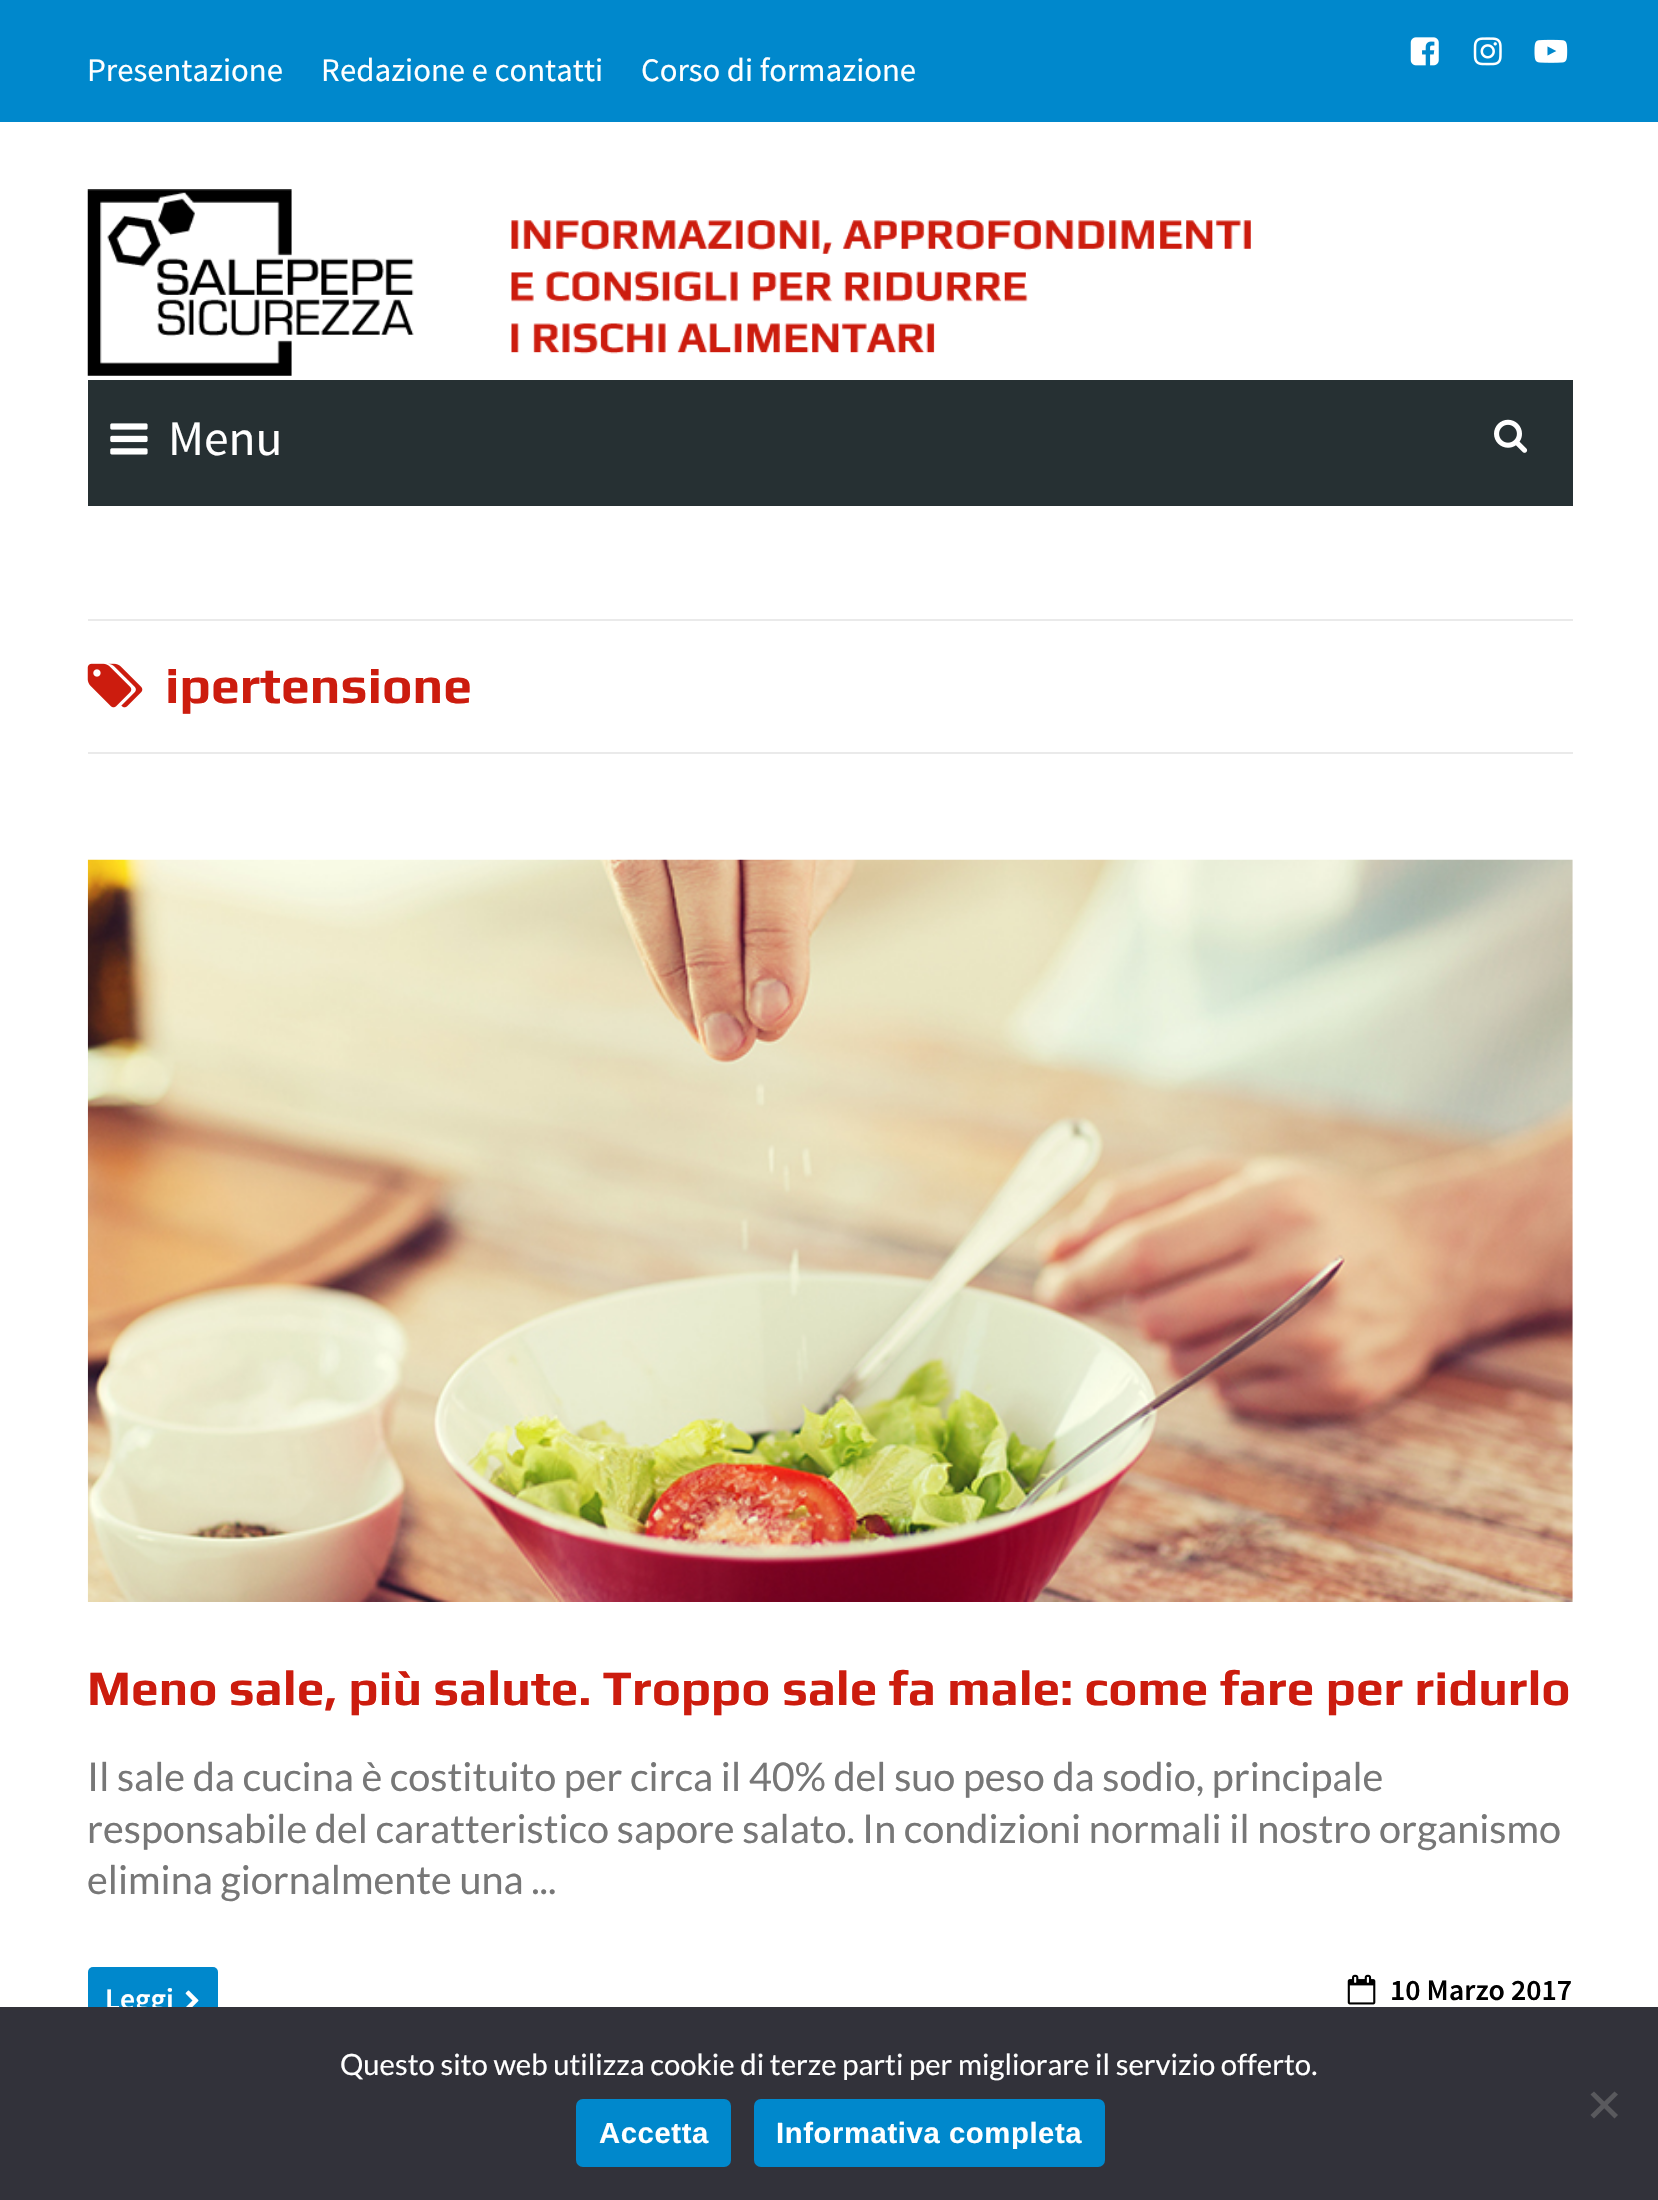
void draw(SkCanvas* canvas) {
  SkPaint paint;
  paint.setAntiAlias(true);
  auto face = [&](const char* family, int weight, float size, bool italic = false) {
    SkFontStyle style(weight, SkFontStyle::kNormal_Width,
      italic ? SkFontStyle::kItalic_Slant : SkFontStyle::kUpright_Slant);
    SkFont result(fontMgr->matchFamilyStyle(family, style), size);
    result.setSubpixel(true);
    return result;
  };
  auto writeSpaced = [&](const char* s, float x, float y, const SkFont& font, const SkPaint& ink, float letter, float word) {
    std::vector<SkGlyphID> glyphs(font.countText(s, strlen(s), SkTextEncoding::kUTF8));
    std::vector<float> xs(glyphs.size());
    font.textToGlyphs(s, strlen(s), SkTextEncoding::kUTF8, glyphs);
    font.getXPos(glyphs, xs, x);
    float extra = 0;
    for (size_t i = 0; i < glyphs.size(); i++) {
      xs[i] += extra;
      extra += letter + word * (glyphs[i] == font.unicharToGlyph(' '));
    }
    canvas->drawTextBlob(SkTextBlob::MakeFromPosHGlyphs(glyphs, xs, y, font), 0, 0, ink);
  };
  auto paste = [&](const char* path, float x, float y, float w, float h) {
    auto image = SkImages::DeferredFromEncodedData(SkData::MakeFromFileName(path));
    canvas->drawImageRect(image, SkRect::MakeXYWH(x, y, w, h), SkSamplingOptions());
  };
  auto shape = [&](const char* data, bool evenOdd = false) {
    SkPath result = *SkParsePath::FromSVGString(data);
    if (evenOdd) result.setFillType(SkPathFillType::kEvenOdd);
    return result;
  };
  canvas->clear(0xffffffff);
  paint.setColor(0xff0088cc);
  canvas->drawRect(SkRect::MakeXYWH(0, 0, 1658, 122), paint);
  paste("img/1.png", 1410, 37, 29, 29);
  paste("img/2.png", 1473, 37, 29, 29);
  paste("img/3.png", 1534, 39, 34, 24);
  paste("img/4.png", 87, 189, 1164, 187);
  paint.setColor(0xff263033);
  canvas->drawRect(SkRect::MakeXYWH(88, 380, 1485, 126), paint);
  paste("img/5.png", 110, 423, 38, 32);
  paste("img/6.png", 1494, 419, 34, 34);
  paint.setColor(0xffeaeaea);
  canvas->drawRect(SkRect::MakeXYWH(88, 619, 1485, 2), paint);
  canvas->drawRect(SkRect::MakeXYWH(88, 752, 1485, 2), paint);
  paste("img/7.png", 87, 663, 56, 45);
  paste("img/8.png", 87, 859, 1486, 743);
  paint.setColor(0xff0088cc);
  canvas->drawRoundRect(SkRect::MakeXYWH(88, 1967, 130, 72), 5, 5, paint);
  paste("img/9.png", 185, 1990, 14, 17);
  paste("img/10.png", 1347, 1974, 29, 31);
  auto f0 = face("Source Sans Pro", 400, 32.75f);
  paint.setColor(0xffffffff);
  {
    const struct { const char* s; float x, y; } items[] = {
      {"Presentazione", 87, 81},
      {"Redazione e contatti", 321, 81},
      {"Corso di formazione", 641, 81},
    };
    for (auto [s, x, y] : items) {
      canvas->drawString(s, x, y, f0, paint);
    }
  }
  auto f1 = face("Source Sans Pro", 400, 49.5f);
  canvas->drawString("Menu", 168, 455, f1, paint);
  auto f2 = face("Play", 700, 51.5f);
  paint.setColor(0xffcc1c0e);
  canvas->drawString("ipertensione", 165, 703, f2, paint);
  auto f3 = face("Play", 700, 49.5f);
  canvas->drawString("Meno sale, più salute. Troppo sale fa male: come fare per ridurlo", 87, 1705, f3, paint);
  auto f4 = face("Lato", 400, 39.6f);
  paint.setColor(0xff777777);
  {
    const struct { const char* s; float x, y; } items[] = {
      {"Il sale da cucina è costituito per circa il 40% del suo peso da sodio, principale", 87, 1791},
      {"responsabile del caratteristico sapore salato.", 87, 1843},
      {"In condizioni normali il nostro organismo", 862, 1843},
      {"elimina giornalmente una ...", 87, 1894},
    };
    for (auto [s, x, y] : items) {
      canvas->drawString(s, x, y, f4, paint);
    }
  }
  auto f5 = face("Source Sans Pro", 600, 29.75f);
  paint.setColor(0xffffffff);
  canvas->drawString("Leggi", 105, 2009, f5, paint);
  paint.setColor(0xff000000);
  canvas->drawString("10 Marzo 2017", 1390, 2000, f5, paint);
  paint.setColor(0xff32323a);
  canvas->drawRect(SkRect::MakeXYWH(0, 2007, 1658, 193), paint);
  auto f6 = face("Lato", 400, 29.25f);
  paint.setColor(0xffffffff);
  canvas->drawString("Questo sito web utilizza cookie di terze parti per migliorare il servizio offerto.", 340, 2075, f6, paint);
  paint.setColor(0xff59595d);
  canvas->drawPath(shape("M1614.5 2091.5L1618 2094.5L1594 2118.5L1590.5 2115Z"), paint);
  canvas->drawPath(shape("M1590.5 2094.5L1594 2091.5L1618 2115L1614.5 2118.5Z"), paint);
  paint.setColor(0xff0088cc);
  canvas->drawRoundRect(SkRect::MakeXYWH(576, 2099, 155, 68), 7, 7, paint);
  auto f7 = face("Liberation Sans", 700, 29.25f);
  paint.setColor(0xffffffff);
  writeSpaced("Accetta", 599, 2143, f7, paint, 0.6f, 0);
  paint.setColor(0xff0088cc);
  canvas->drawRoundRect(SkRect::MakeXYWH(754, 2099, 351, 68), 7, 7, paint);
  paint.setColor(0xffffffff);
  writeSpaced("Informativa completa", 776, 2143, f7, paint, 0.6f, 0);
}
